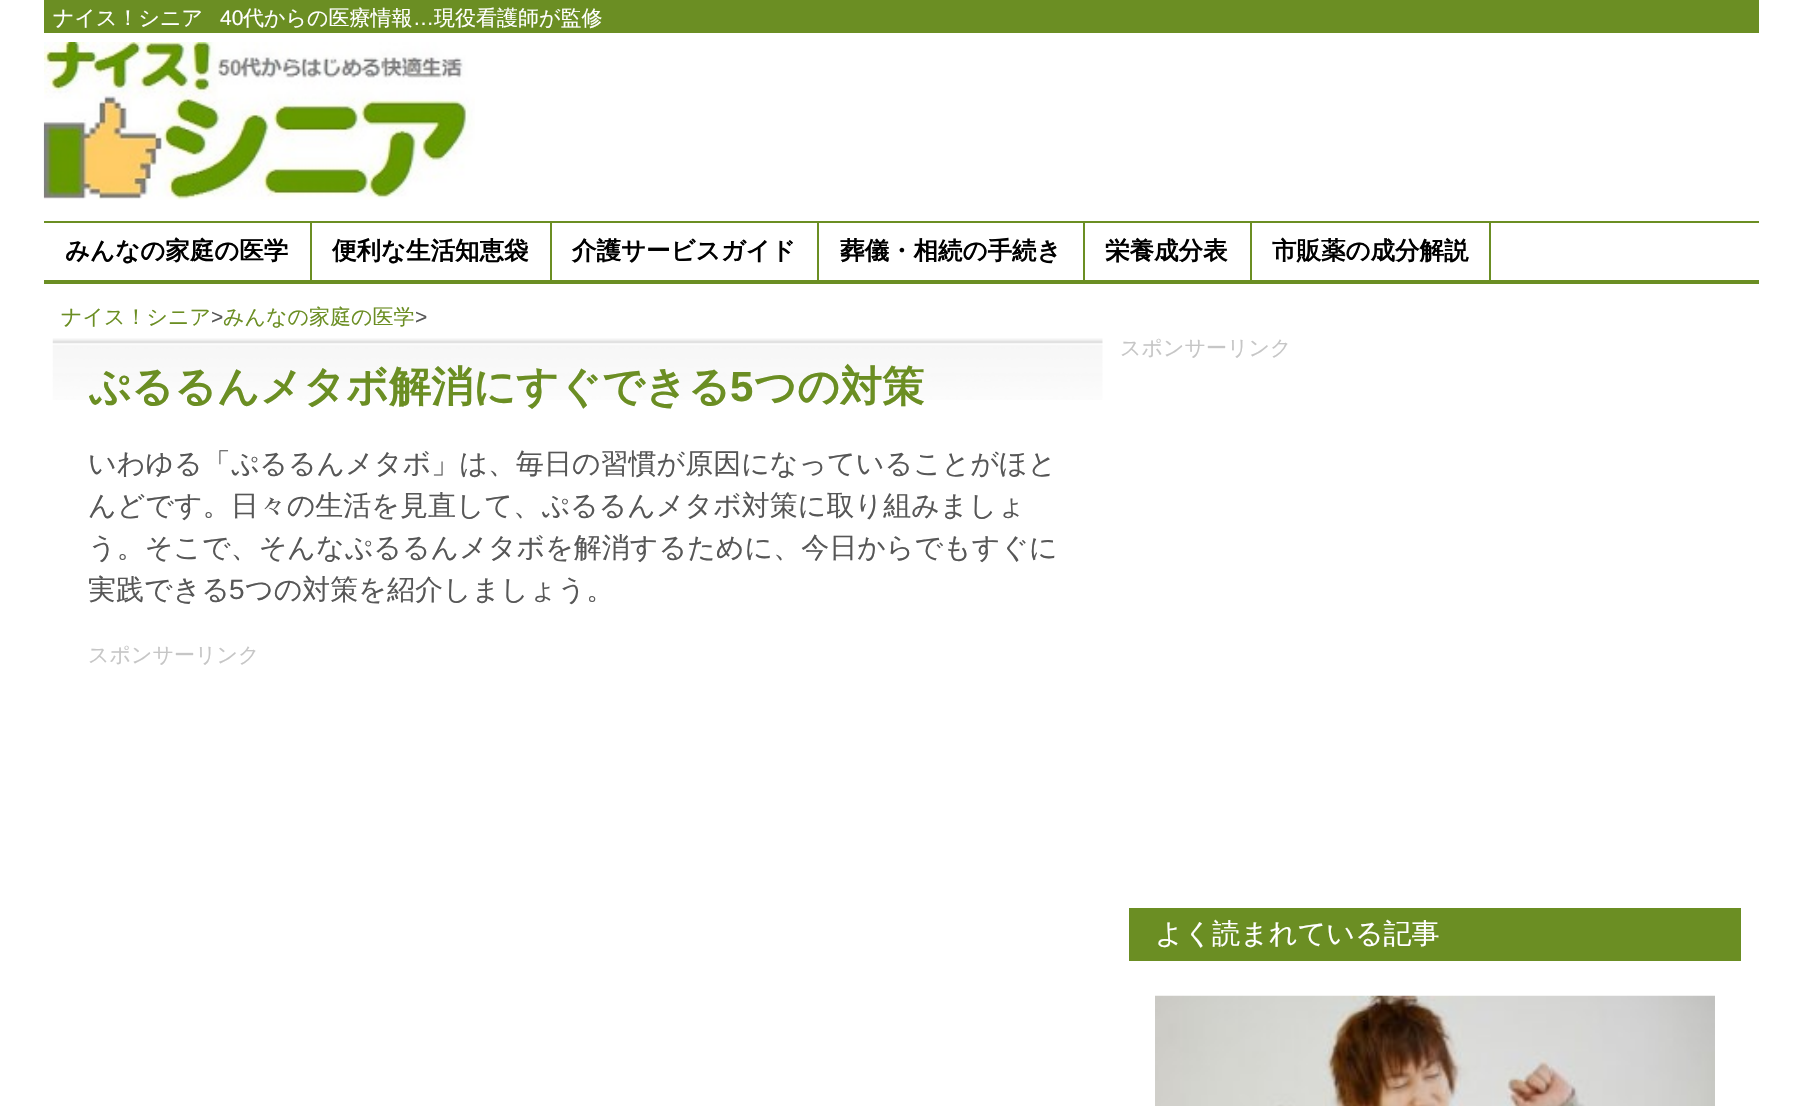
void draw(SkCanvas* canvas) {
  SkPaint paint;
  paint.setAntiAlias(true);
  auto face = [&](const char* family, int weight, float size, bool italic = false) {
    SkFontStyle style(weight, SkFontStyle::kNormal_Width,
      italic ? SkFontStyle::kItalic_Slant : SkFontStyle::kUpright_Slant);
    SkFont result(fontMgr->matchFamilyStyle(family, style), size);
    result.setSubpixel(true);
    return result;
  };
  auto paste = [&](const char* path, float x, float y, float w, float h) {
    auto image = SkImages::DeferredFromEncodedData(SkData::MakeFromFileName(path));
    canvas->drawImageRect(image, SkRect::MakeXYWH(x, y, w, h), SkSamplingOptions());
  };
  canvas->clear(0xffffffff);
  paint.setColor(0xff6b8e23);
  canvas->drawRect(SkRect::MakeXYWH(44, 0, 1715, 33), paint);
  paste("img/1.png", 43, 42, 432, 158);
  {
    const struct { float x, y, w, h; SkColor color; } items[] = {
      {44, 221, 1715, 2, 0xff6b8e23},
      {44, 280, 1715, 4, 0xff6b8e23},
      {310, 222, 2, 58, 0xff6b8e23},
      {550, 222, 2, 58, 0xff6b8e23},
      {817, 222, 2, 58, 0xff6b8e23},
      {1083, 222, 2, 58, 0xff6b8e23},
      {1250, 222, 2, 58, 0xff6b8e23},
      {1489, 222, 2, 58, 0xff6b8e23},
    };
    for (auto [x, y, w, h, color] : items) {
      paint.setColor(color);
      canvas->drawRect(SkRect::MakeXYWH(x, y, w, h), paint);
    }
  }
  paste("img/2.png", 52, 338, 1051, 62);
  canvas->drawRect(SkRect::MakeXYWH(1129, 908, 612, 53), paint);
  paste("img/3.png", 1155, 995, 560, 111);
  auto f0 = face("WenQuanYi Zen Hei", 500, 21);
  paint.setColor(0xffffffff);
  canvas->drawString("ナイス！シニア", 53, 25, f0, paint);
  auto f1 = face("Liberation Sans", 400, 21);
  canvas->drawString("40", 220, 25, f1, paint);
  canvas->drawString("代からの医療情報", 243, 25, f0, paint);
  canvas->drawString("…", 413, 25, f1, paint);
  canvas->drawString("現役看護師が監修", 434, 25, f0, paint);
  auto f2 = face("WenQuanYi Zen Hei", 700, 24.5f);
  paint.setColor(0xff000000);
  {
    const struct { const char* s; float x, y; } items[] = {
      {"みんなの家庭の医学", 65, 259},
      {"便利な生活知恵袋", 332, 259},
      {"介護サービスガイド", 572, 259},
      {"葬儀・相続の手続き", 840, 259},
      {"栄養成分表", 1105, 259},
      {"市販薬の成分解説", 1272, 259},
    };
    for (auto [s, x, y] : items) {
      canvas->drawString(s, x, y, f2, paint);
    }
  }
  paint.setColor(0xff6b8e23);
  canvas->drawString("ナイス！シニア", 61, 324, f0, paint);
  paint.setColor(0xff575757);
  canvas->drawString(">", 211, 324, f1, paint);
  paint.setColor(0xff6b8e23);
  canvas->drawString("みんなの家庭の医学", 223, 324, f0, paint);
  paint.setColor(0xff575757);
  canvas->drawString(">", 415, 324, f1, paint);
  auto f3 = face("WenQuanYi Zen Hei", 700, 42);
  paint.setColor(0xff6b8e23);
  canvas->drawString("ぷるるんメタボ解消にすぐできる", 88, 401, f3, paint);
  auto f4 = face("Liberation Sans", 700, 42);
  canvas->drawString("5", 730, 401, f4, paint);
  canvas->drawString("つの対策", 754, 401, f3, paint);
  auto f5 = face("WenQuanYi Zen Hei", 500, 28);
  paint.setColor(0xff575757);
  {
    const struct { const char* s; float x, y; } items[] = {
      {"いわゆる「ぷるるんメタボ」は、毎日の習慣が原因になっていることがほと", 88, 473},
      {"んどです。日々の生活を見直して、ぷるるんメタボ対策に取り組みましょ", 88, 515},
      {"う。そこで、そんなぷるるんメタボを解消するために、今日からでもすぐに", 88, 557},
      {"実践できる", 88, 599},
    };
    for (auto [s, x, y] : items) {
      canvas->drawString(s, x, y, f5, paint);
    }
  }
  auto f6 = face("Liberation Sans", 400, 28);
  canvas->drawString("5", 229, 599, f6, paint);
  canvas->drawString("つの対策を紹介しましょう。", 245, 599, f5, paint);
  paint.setColor(0xffc6c6c6);
  canvas->drawString("スポンサーリンク", 88, 662, f0, paint);
  canvas->drawString("スポンサーリンク", 1120, 355, f0, paint);
  paint.setColor(0xffffffff);
  canvas->drawString("よく読まれている記事", 1155, 943, f5, paint);
}
